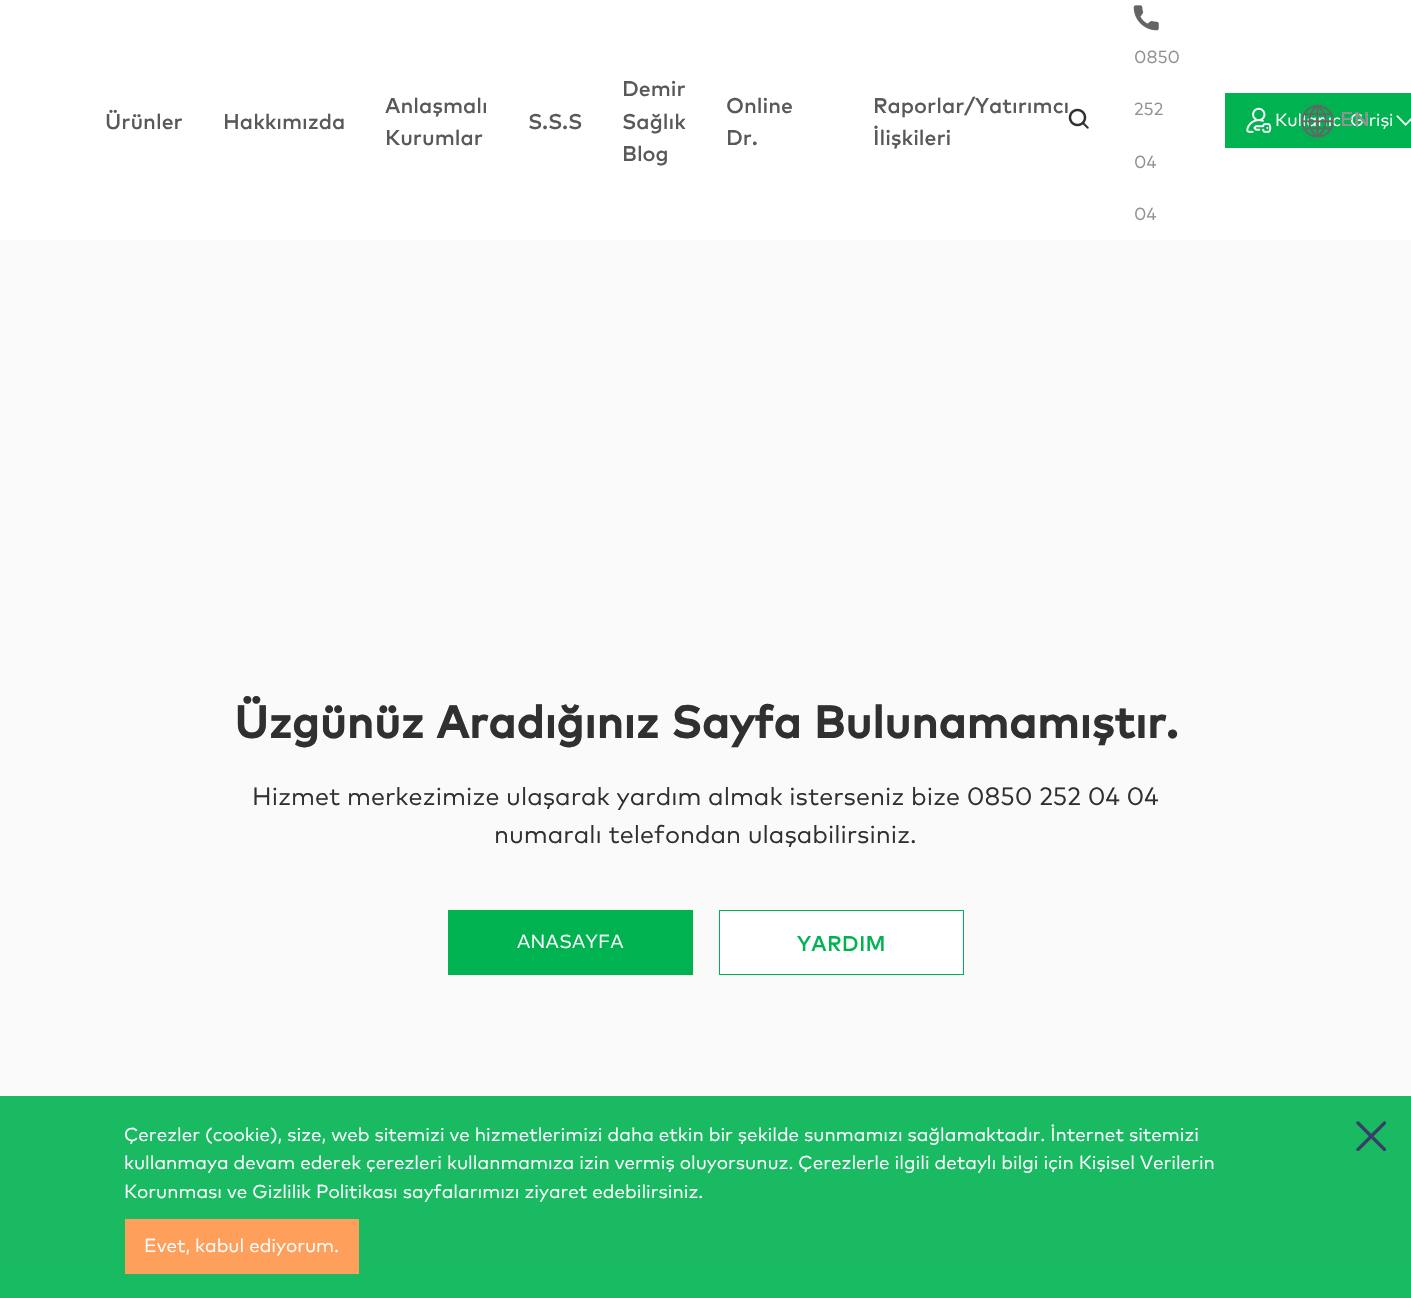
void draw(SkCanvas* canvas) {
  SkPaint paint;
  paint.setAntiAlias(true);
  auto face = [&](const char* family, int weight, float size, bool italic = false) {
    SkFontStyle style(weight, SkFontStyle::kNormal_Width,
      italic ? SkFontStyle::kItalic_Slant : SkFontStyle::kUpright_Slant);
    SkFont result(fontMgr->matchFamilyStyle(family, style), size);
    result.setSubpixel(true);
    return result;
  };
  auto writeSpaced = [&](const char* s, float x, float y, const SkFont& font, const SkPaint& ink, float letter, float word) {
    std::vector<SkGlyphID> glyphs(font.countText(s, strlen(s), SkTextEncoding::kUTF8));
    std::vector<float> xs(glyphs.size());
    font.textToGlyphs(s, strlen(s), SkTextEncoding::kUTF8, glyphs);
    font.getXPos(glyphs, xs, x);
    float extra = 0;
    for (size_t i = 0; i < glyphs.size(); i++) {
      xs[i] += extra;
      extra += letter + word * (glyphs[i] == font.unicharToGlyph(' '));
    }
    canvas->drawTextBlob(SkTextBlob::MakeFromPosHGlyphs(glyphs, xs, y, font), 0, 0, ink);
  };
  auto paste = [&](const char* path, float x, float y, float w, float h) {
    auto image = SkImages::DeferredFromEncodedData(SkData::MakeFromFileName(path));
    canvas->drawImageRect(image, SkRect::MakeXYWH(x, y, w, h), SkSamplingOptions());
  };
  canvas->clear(0xfffafafb);
  paint.setColor(0xff19ba61);
  canvas->drawRect(SkRect::MakeXYWH(0, 1096, 1411, 180), paint);
  paint.setColor(0xffffffff);
  canvas->drawRect(SkRect::MakeXYWH(0, 0, 1411, 240), paint);
  paste("img/1.png", 1068, 108, 21, 21);
  paste("img/2.png", 1133, 5, 26, 26);
  paint.setColor(0xff00b350);
  canvas->drawRect(SkRect::MakeXYWH(1225, 93, 186, 55), paint);
  paste("img/4.png", 1246, 107, 26, 26);
  paste("img/5.png", 1396, 115, 15, 11);
  canvas->drawRect(SkRect::MakeXYWH(448, 910, 245, 65), paint);
  paint.setColor(0xffffffff);
  canvas->drawRect(SkRect::MakeXYWH(719.5f, 910.5f, 244, 64), paint);
  paint.setStroke(true);
  paint.setStrokeWidth(1);
  paint.setColor(0xff00b350);
  canvas->drawRect(SkRect::MakeXYWH(719.5f, 910.5f, 244, 64), paint);
  paint.setStroke(false);
  paint.setColor(0xfffe9f5c);
  canvas->drawRect(SkRect::MakeXYWH(125, 1219, 234, 55), paint);
  paste("img/6.png", 1356, 1121, 30, 30);
  paint.setColor(0xff19bb62);
  canvas->drawRect(SkRect::MakeXYWH(0, 1276, 1411, 22), paint);
  auto f0 = face("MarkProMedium", 400, 21.25f);
  paint.setColor(0xff595959);
  {
    const struct { const char* s; float x, y; } items[] = {
      {"Ürünler", 105, 129},
      {"Hakkımızda", 223, 129},
      {"Anlaşmalı", 385, 113},
      {"Kurumlar", 385, 145},
      {"S.S.S", 528, 129},
      {"Demir", 622, 96},
      {"Sağlık", 622, 129},
      {"Blog", 622, 161},
      {"Online", 726, 113},
      {"Dr.", 726, 145},
      {"Raporlar/Yatırımcı", 873, 113},
      {"İlişkileri", 873, 145},
    };
    for (auto [s, x, y] : items) {
      canvas->drawString(s, x, y, f0, paint);
    }
  }
  auto f1 = face("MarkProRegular", 400, 17.5f);
  paint.setColor(0xff929292);
  {
    const struct { const char* s; float x, y; } items[] = {
      {"0850", 1134, 63},
      {"252", 1134, 115},
      {"04", 1134, 168},
      {"04", 1134, 220},
    };
    for (auto [s, x, y] : items) {
      canvas->drawString(s, x, y, f1, paint);
    }
  }
  paint.setColor(0xffffffff);
  canvas->drawString("Kullanıcı Girişi", 1275, 126, f1, paint);
  auto f2 = face("MarkProMedium", 400, 20);
  paint.setColor(0xff929292);
  canvas->drawString("EN", 1340, 126, f2, paint);
  paste("img/3.png", 1301, 105, 33, 33);
  auto f3 = face("MarkProMedium", 700, 45);
  paint.setColor(0xff303030);
  canvas->drawString("Üzgünüz Aradığınız Sayfa Bulunamamıştır.", 234, 738, f3, paint);
  auto f4 = face("MarkProRegular", 400, 25);
  canvas->drawString("Hizmet merkezimize ulaşarak yardım almak isterseniz bize 0850 252 04 04", 252, 805, f4, paint);
  canvas->drawString("numaralı telefondan ulaşabilirsiniz.", 494, 843, f4, paint);
  auto f5 = face("MarkProRegular", 400, 18.75f);
  paint.setColor(0xffffffff);
  writeSpaced("ANASAYFA", 517, 948, f5, paint, 0.25f, 0);
  paint.setColor(0xff00b350);
  writeSpaced("YARDIM", 797, 951, f0, paint, 0.25f, 0);
  paint.setColor(0xffffffff);
  {
    const struct { const char* s; float x, y; } items[] = {
      {"Çerezler (cookie), size, web sitemizi ve hizmetlerimizi daha etkin bir şekilde sunmamızı sağlamaktadır. İnternet sitemizi", 124, 1141},
      {"kullanmaya devam ederek çerezleri kullanmamıza izin vermiş oluyorsunuz. Çerezlerle ilgili detaylı bilgi için Kişisel Verilerin", 124, 1169},
      {"Korunması ve Gizlilik Politikası sayfalarımızı ziyaret edebilirsiniz.", 124, 1198},
      {"Evet, kabul ediyorum.", 144, 1252},
    };
    for (auto [s, x, y] : items) {
      canvas->drawString(s, x, y, f5, paint);
    }
  }
}
